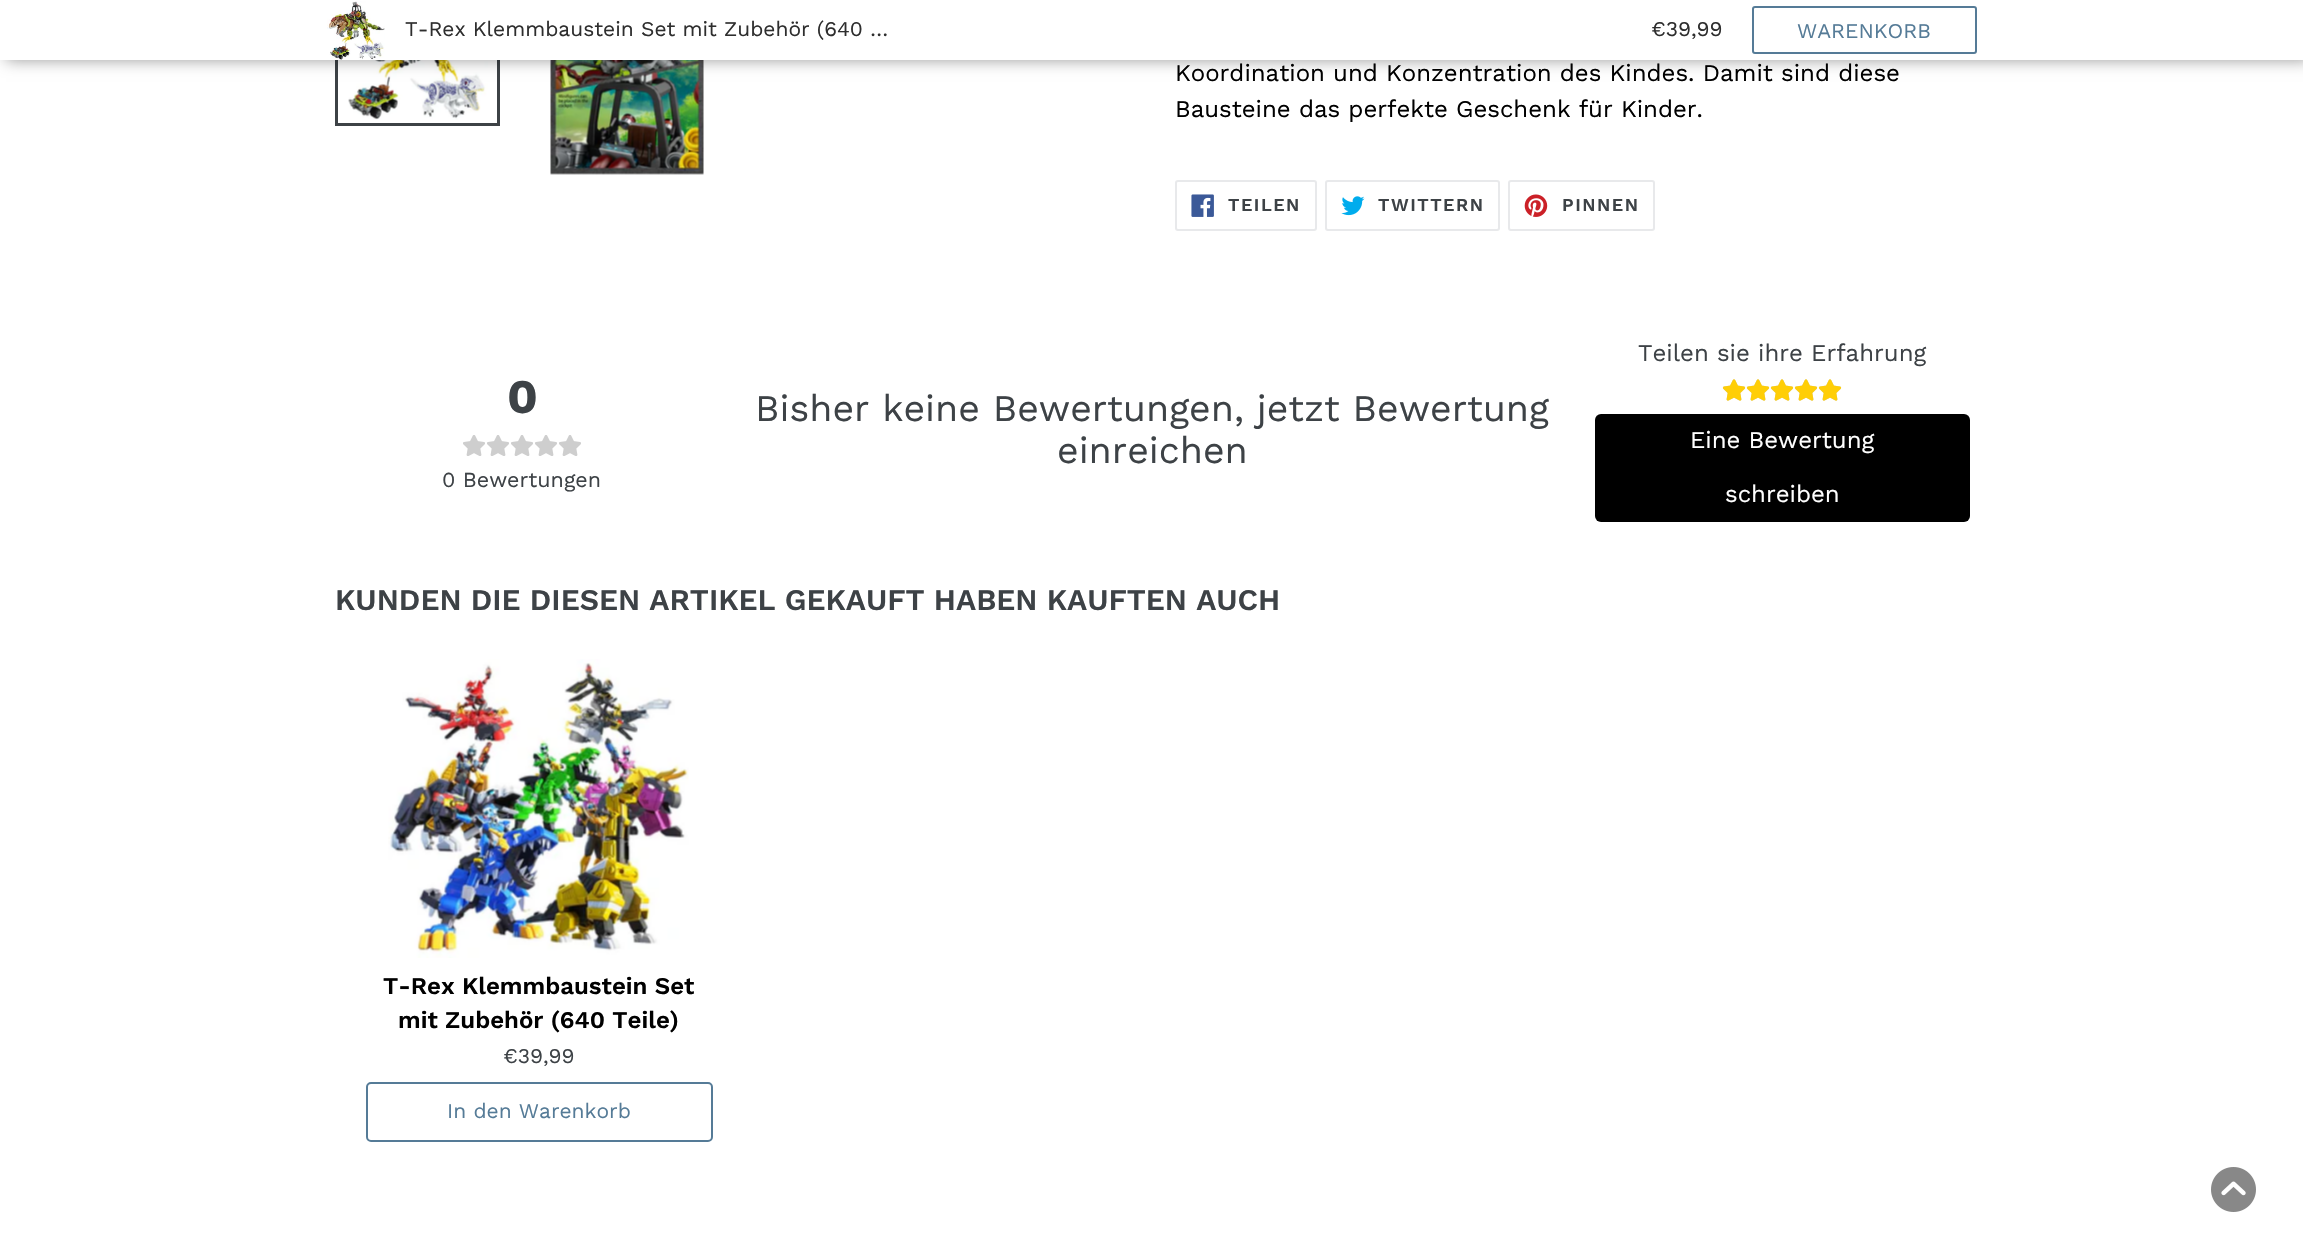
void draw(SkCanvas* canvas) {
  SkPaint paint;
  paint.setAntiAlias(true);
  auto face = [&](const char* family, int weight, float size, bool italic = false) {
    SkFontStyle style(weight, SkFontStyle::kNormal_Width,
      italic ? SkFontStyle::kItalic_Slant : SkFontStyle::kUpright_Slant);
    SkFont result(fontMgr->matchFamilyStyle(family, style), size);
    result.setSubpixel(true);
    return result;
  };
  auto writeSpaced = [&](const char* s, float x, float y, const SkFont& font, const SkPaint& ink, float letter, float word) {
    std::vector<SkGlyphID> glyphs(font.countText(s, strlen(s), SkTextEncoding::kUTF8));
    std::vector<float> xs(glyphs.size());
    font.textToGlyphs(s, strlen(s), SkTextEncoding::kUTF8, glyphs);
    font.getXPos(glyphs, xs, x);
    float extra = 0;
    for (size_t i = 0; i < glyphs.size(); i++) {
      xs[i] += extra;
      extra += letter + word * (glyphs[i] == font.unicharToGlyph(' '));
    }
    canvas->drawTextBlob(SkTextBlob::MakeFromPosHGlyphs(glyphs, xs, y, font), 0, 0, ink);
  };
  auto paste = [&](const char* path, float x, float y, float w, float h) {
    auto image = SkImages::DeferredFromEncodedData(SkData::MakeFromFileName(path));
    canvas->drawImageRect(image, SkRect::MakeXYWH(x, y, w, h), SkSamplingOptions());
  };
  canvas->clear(0xffffffff);
  paint.setStroke(true);
  paint.setStrokeWidth(3);
  paint.setColor(0xff3d4246);
  canvas->drawRect(SkRect::MakeXYWH(336.5f, -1.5f, 162, 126), paint);
  paste("img/2.png", 344, 60, 144, 60);
  paste("img/3.png", 550, 60, 154, 115);
  paint.setStroke(false);
  paint.setColor(0x66000000);
  paint.setMaskFilter(SkMaskFilter::MakeBlur(kNormal_SkBlurStyle, 7.5f));
  canvas->drawRect(SkRect::MakeXYWH(6, 0, 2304, 60), paint);
  paint.setMaskFilter(nullptr);
  paint.setColor(0xffffffff);
  canvas->drawRect(SkRect::MakeXYWH(0, 0, 2303, 60), paint);
  paste("img/1.png", 327, 1, 58, 59);
  paint.setStroke(true);
  paint.setStrokeWidth(2);
  paint.setColor(0xff557b97);
  canvas->drawRoundRect(SkRect::MakeXYWH(1753, 7, 223, 46), 2, 2, paint);
  paint.setColor(0xffe8e9eb);
  canvas->drawRoundRect(SkRect::MakeXYWH(1176, 181, 140, 49), 2, 2, paint);
  paste("img/4.png", 1191, 194, 23, 23);
  canvas->drawRoundRect(SkRect::MakeXYWH(1326, 181, 173, 49), 2, 2, paint);
  paste("img/5.png", 1341, 196, 24, 20);
  canvas->drawRoundRect(SkRect::MakeXYWH(1509, 181, 145, 49), 2, 2, paint);
  paste("img/6.png", 1524, 194, 24, 23);
  paste("img/7.png", 463, 435, 22, 21);
  paste("img/7.png", 487, 435, 22, 21);
  paste("img/7.png", 511, 435, 22, 21);
  paste("img/7.png", 535, 435, 22, 21);
  paste("img/7.png", 559, 435, 22, 21);
  paste("img/9.png", 1723, 379, 22, 22);
  paste("img/8.png", 1722, 379, 24, 22);
  paste("img/9.png", 1747, 379, 22, 22);
  paste("img/8.png", 1746, 379, 24, 22);
  paste("img/9.png", 1771, 379, 22, 22);
  paste("img/8.png", 1770, 379, 24, 22);
  paste("img/9.png", 1795, 379, 22, 22);
  paste("img/8.png", 1794, 379, 24, 22);
  paste("img/9.png", 1819, 379, 22, 22);
  paste("img/8.png", 1818, 379, 24, 22);
  paint.setStroke(false);
  paint.setColor(0xff000000);
  canvas->drawRoundRect(SkRect::MakeXYWH(1595, 414, 375, 108), 6, 6, paint);
  paste("img/10.png", 388, 659, 301, 299);
  paint.setStroke(true);
  paint.setColor(0xff557b97);
  canvas->drawRoundRect(SkRect::MakeXYWH(367, 1083, 345, 58), 4, 4, paint);
  paste("img/11.png", 2211, 1167, 45, 45);
  auto f0 = face("Work Sans", 400, 21);
  paint.setStroke(false);
  paint.setColor(0xff2e2e2e);
  canvas->drawString("T-Rex Klemmbaustein Set mit Zubehör (640 …", 405, 36, f0, paint);
  canvas->drawString("€39,99", 1651, 36, f0, paint);
  paint.setColor(0xff557b97);
  canvas->drawString("WARENKORB", 1797, 38, f0, paint);
  auto f1 = face("Work Sans", 400, 24);
  paint.setColor(0xff000000);
  canvas->drawString("Koordination und Konzentration des Kindes. Damit sind diese", 1175, 81, f1, paint);
  canvas->drawString("Bausteine das perfekte Geschenk für Kinder.", 1175, 117, f1, paint);
  auto f2 = face("Work Sans", 600, 18);
  paint.setColor(0xff3d4246);
  {
    const struct { const char* s; float x, y; } items[] = {
      {"TEILEN", 1228, 211},
      {"TWITTERN", 1378, 211},
      {"PINNEN", 1562, 211},
    };
    for (auto [s, x, y] : items) {
      writeSpaced(s, x, y, f2, paint, 1.5f, 0);
    }
  }
  auto f3 = face("Work Sans", 700, 48);
  canvas->drawString("0", 507, 413, f3, paint);
  auto f4 = face("Work Sans", 400, 21.5f);
  canvas->drawString("0 Bewertungen", 442, 487, f4, paint);
  auto f5 = face("Work Sans", 400, 37.5f);
  canvas->drawString("Bisher keine Bewertungen, jetzt Bewertung", 755, 421, f5, paint);
  canvas->drawString("einreichen", 1057, 463, f5, paint);
  canvas->drawString("Teilen sie ihre Erfahrung", 1638, 361, f1, paint);
  paint.setColor(0xffffffff);
  canvas->drawString("Eine Bewertung", 1690, 448, f1, paint);
  canvas->drawString("schreiben", 1725, 502, f1, paint);
  auto f6 = face("Work Sans", 600, 30);
  paint.setColor(0xff3d4246);
  canvas->drawString("KUNDEN DIE DIESEN ARTIKEL GEKAUFT HABEN KAUFTEN AUCH", 335, 610, f6, paint);
  auto f7 = face("Work Sans", 600, 24);
  paint.setColor(0xff000000);
  canvas->drawString("T-Rex Klemmbaustein Set", 383, 994, f7, paint);
  canvas->drawString("mit Zubehör (640 Teile)", 398, 1028, f7, paint);
  paint.setColor(0xff3d4246);
  canvas->drawString("€39,99", 503, 1063, f0, paint);
  paint.setColor(0xff557b97);
  canvas->drawString("In den Warenkorb", 447, 1118, f0, paint);
}
